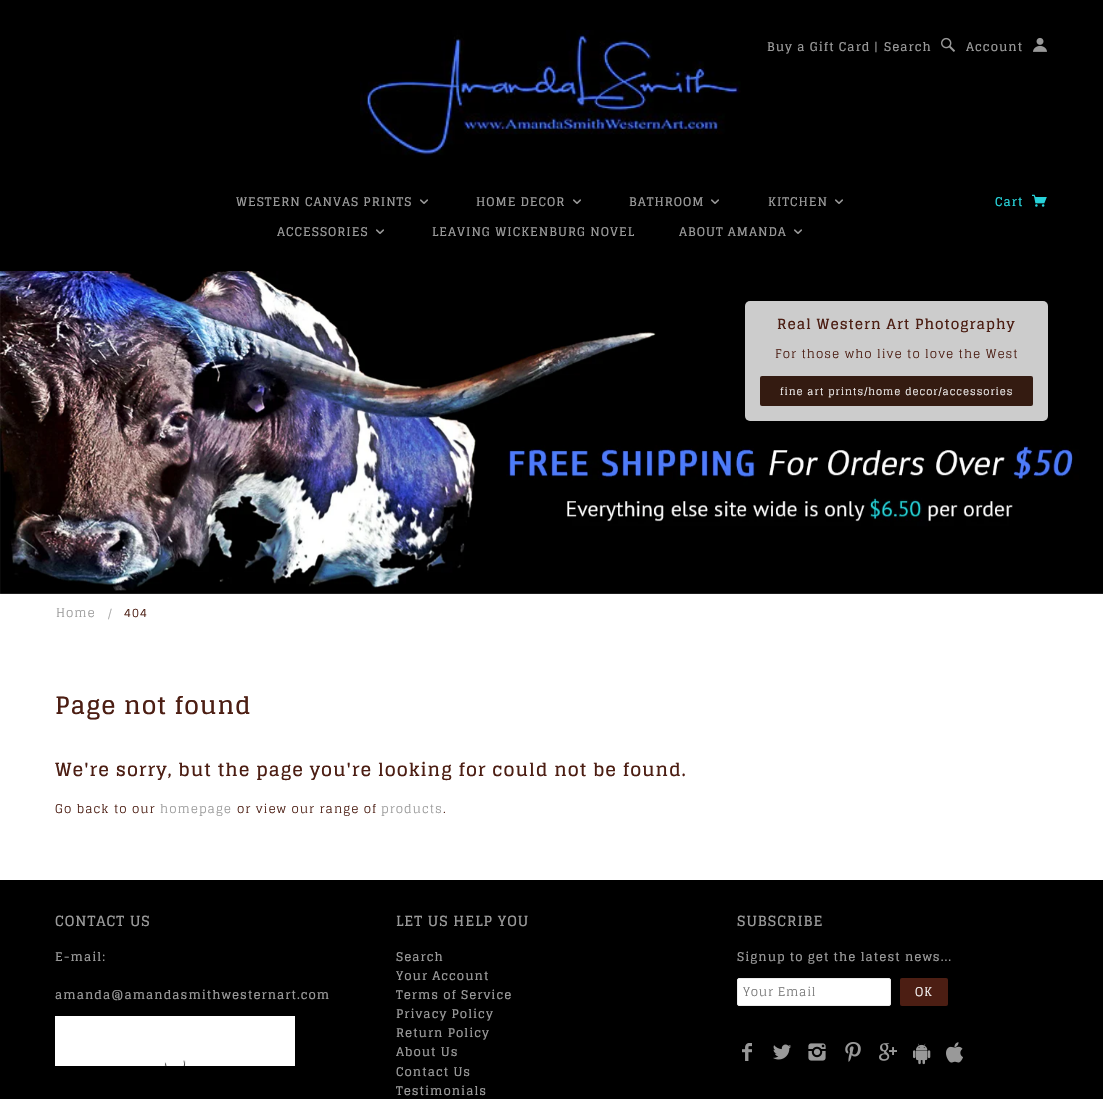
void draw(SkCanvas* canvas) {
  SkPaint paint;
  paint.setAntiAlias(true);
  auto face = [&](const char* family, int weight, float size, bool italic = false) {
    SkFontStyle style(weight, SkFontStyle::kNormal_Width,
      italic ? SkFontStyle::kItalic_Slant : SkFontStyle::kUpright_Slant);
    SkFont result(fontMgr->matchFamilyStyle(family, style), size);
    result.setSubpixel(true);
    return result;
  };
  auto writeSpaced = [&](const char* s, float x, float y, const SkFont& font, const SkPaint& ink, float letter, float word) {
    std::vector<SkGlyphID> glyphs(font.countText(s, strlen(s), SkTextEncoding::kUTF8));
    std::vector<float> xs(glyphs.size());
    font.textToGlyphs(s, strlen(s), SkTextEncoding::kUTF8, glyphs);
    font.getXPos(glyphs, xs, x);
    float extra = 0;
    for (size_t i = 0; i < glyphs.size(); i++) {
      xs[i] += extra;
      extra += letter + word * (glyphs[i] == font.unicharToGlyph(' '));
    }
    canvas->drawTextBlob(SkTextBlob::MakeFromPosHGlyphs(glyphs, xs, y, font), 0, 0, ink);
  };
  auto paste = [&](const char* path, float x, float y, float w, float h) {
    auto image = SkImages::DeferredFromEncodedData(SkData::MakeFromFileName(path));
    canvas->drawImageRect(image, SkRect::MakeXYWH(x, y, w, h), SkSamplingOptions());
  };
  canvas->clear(0xffffffff);
  paint.setColor(0xff000000);
  canvas->drawRect(SkRect::MakeXYWH(0, 0, 1103, 271), paint);
  paste("img/1.png", 360, 30, 381, 126);
  paste("img/2.png", 941, 37, 14, 15);
  paste("img/3.png", 1033, 37, 14, 15);
  paste("img/4.png", 420, 199, 8, 5);
  paste("img/4.png", 573, 199, 8, 5);
  paste("img/4.png", 711, 199, 8, 5);
  paste("img/4.png", 835, 199, 8, 5);
  paste("img/4.png", 376, 229, 8, 5);
  paste("img/4.png", 794, 229, 8, 5);
  paste("img/5.png", 1032, 194, 15, 13);
  paste("img/6.png", 0, 271, 1103, 323);
  paint.setColor(0xffcccccc);
  canvas->drawRoundRect(SkRect::MakeXYWH(745, 301, 303, 120), 5, 5, paint);
  paint.setColor(0xff341b11);
  canvas->drawRoundRect(SkRect::MakeXYWH(760, 376, 273, 30), 2, 2, paint);
  paint.setColor(0xff000000);
  canvas->drawRect(SkRect::MakeXYWH(0, 880, 1103, 219), paint);
  paste("img/7.png", 55, 1016, 240, 50);
  paint.setColor(0xffffffff);
  canvas->drawRoundRect(SkRect::MakeXYWH(737.5f, 978.5f, 153, 27), 1.5f, 1.5f, paint);
  paint.setStroke(true);
  paint.setStrokeWidth(1);
  paint.setColor(0xffebebeb);
  canvas->drawRoundRect(SkRect::MakeXYWH(737.5f, 978.5f, 153, 27), 1.5f, 1.5f, paint);
  paint.setStroke(false);
  paint.setColor(0xff4c1e13);
  canvas->drawRoundRect(SkRect::MakeXYWH(900, 978, 48, 28), 2, 2, paint);
  paste("img/8.png", 742, 1043, 10, 18);
  paste("img/9.png", 773, 1044, 19, 16);
  paste("img/10.png", 808, 1043, 18, 18);
  paste("img/11.png", 845, 1042, 16, 20);
  paste("img/12.png", 879, 1043, 18, 18);
  paste("img/13.png", 913, 1043, 18, 22);
  paste("img/14.png", 946, 1042, 17, 21);
  auto f0 = face("Glegoo", 700, 12);
  paint.setColor(0xff999999);
  writeSpaced("Buy a Gift Card", 767, 51, f0, paint, 1, 0);
  auto f1 = face("Glegoo", 400, 12);
  writeSpaced("|", 874, 51, f1, paint, 1, 0);
  {
    const struct { const char* s; float x, y; } items[] = {
      {"Search", 884, 51},
      {"Account", 966, 51},
      {"WESTERN CANVAS PRINTS", 236, 206},
      {"HOME DECOR", 476, 206},
      {"BATHROOM", 629, 206},
      {"KITCHEN", 768, 206},
      {"ACCESSORIES", 277, 236},
      {"LEAVING WICKENBURG NOVEL", 432, 236},
      {"ABOUT AMANDA", 679, 236},
    };
    for (auto [s, x, y] : items) {
      writeSpaced(s, x, y, f0, paint, 1, 0);
    }
  }
  paint.setColor(0xff27d2d9);
  writeSpaced("Cart", 995, 206, f0, paint, 1, 0);
  auto f2 = face("Glegoo", 700, 14);
  paint.setColor(0xff4c1e13);
  writeSpaced("Real Western Art Photography", 777, 329, f2, paint, 1, 0);
  writeSpaced("For those who live to love the West", 775, 358, f1, paint, 1, 0);
  auto f3 = face("Glegoo", 400, 10);
  paint.setColor(0xffffffff);
  writeSpaced("fine art prints/home decor/accessories", 780, 395, f3, paint, 1, 0);
  paint.setColor(0xff999999);
  writeSpaced("Home", 56, 617, f1, paint, 1, 0);
  paint.setColor(0xffaaaaaa);
  writeSpaced("/", 108, 618, f1, paint, 1, 0);
  paint.setColor(0xff4c1e13);
  writeSpaced("404", 124, 617, f1, paint, 1, 0);
  auto f4 = face("Glegoo", 700, 24);
  writeSpaced("Page not found", 55, 714, f4, paint, 1, 0);
  auto f5 = face("Glegoo", 700, 18);
  writeSpaced("We're sorry, but the page you're looking for could not be found.", 55, 776, f5, paint, 1, 0);
  writeSpaced("Go back to our", 55, 813, f1, paint, 1, 0);
  paint.setColor(0xff999999);
  writeSpaced("homepage", 160, 813, f1, paint, 1, 0);
  paint.setColor(0xff4c1e13);
  writeSpaced("or view our range of", 237, 813, f1, paint, 1, 0);
  paint.setColor(0xff999999);
  writeSpaced("products", 381, 813, f1, paint, 1, 0);
  paint.setColor(0xff4c1e13);
  writeSpaced(".", 443, 813, f1, paint, 1, 0);
  paint.setColor(0xff999999);
  writeSpaced("CONTACT US", 55, 926, f2, paint, 1, 0);
  writeSpaced("E-mail:", 55, 961, f0, paint, 1, 0);
  writeSpaced("amanda@amandasmithwesternart.com", 55, 999, f0, paint, 1, 0);
  writeSpaced("LET US HELP YOU", 396, 926, f2, paint, 1, 0);
  {
    const struct { const char* s; float x, y; } items[] = {
      {"Search", 396, 961},
      {"Your Account", 396, 980},
      {"Terms of Service", 396, 999},
      {"Privacy Policy", 396, 1018},
      {"Return Policy", 396, 1037},
      {"About Us", 396, 1056},
      {"Contact Us", 396, 1076},
      {"Testimonials", 396, 1095},
    };
    for (auto [s, x, y] : items) {
      writeSpaced(s, x, y, f0, paint, 1, 0);
    }
  }
  writeSpaced("SUBSCRIBE", 737, 926, f2, paint, 1, 0);
  writeSpaced("Signup to get the latest news...", 737, 961, f0, paint, 1, 0);
  paint.setColor(0xff757575);
  writeSpaced("Your Email", 743, 996, f1, paint, 0.75f, 0);
  paint.setColor(0xffffffff);
  writeSpaced("OK", 915, 996, f1, paint, 1, 0);
}
